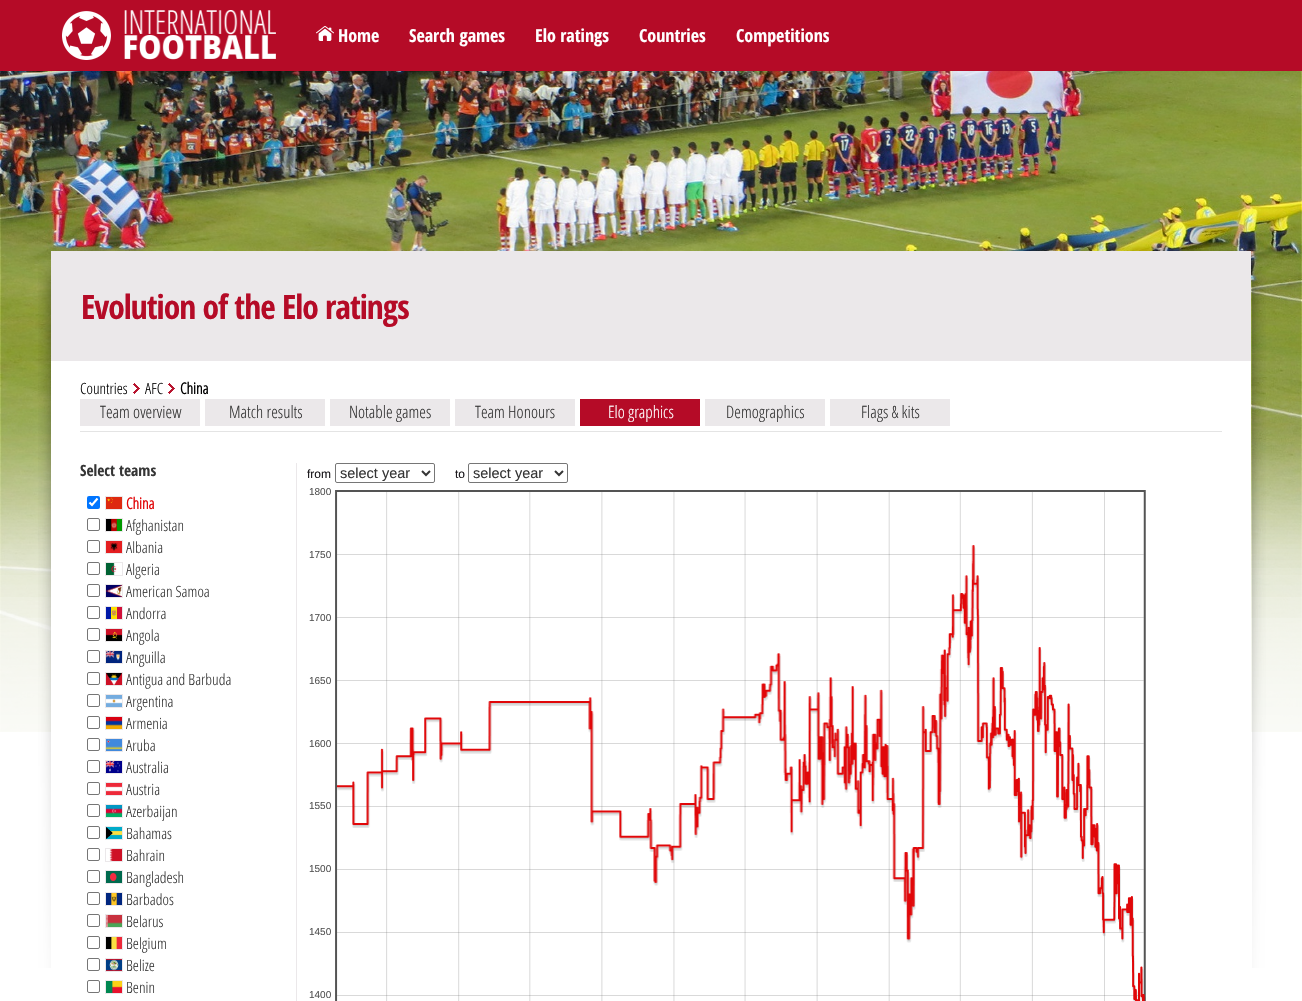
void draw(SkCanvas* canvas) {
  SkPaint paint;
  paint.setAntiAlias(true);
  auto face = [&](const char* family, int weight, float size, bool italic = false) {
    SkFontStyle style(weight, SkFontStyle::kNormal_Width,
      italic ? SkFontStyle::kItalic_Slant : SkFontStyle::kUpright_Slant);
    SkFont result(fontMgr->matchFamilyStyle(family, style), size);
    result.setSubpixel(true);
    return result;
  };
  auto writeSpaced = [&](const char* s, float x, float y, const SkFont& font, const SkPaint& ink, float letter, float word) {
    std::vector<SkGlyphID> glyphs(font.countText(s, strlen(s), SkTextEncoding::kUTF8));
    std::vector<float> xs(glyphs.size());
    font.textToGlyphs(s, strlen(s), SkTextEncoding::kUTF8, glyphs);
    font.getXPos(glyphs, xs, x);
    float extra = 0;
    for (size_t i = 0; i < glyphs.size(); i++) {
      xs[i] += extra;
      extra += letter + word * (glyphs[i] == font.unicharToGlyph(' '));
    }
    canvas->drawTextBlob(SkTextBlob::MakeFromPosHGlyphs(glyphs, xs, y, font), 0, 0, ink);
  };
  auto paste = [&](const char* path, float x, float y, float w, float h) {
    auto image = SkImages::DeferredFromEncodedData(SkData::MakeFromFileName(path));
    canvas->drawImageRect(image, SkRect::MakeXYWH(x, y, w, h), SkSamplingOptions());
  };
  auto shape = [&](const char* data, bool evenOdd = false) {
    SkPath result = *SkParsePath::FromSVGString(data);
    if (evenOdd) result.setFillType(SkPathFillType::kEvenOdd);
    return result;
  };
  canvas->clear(0xffffffff);
  paint.setColor(0xffb50b27);
  canvas->drawRect(SkRect::MakeXYWH(0, 0, 1302, 71), paint);
  paste("img/1.png", 62, 10, 214, 50);
  paste("img/2.png", 316, 26, 18, 15);
  paste("img/30.png", 0, 71, 1302, 661);
  paste("img/31.png", 0, 361, 1302, 371);
  paste("img/3.png", 38, 261, 13, 707);
  paint.setColor(0xffffffff);
  canvas->drawRect(SkRect::MakeXYWH(51, 361, 1200, 371), paint);
  paint.setColor(0xffebe8ea);
  canvas->drawRect(SkRect::MakeXYWH(51, 251, 1200, 110), paint);
  paste("img/4.png", 133, 383, 7, 11);
  paste("img/4.png", 168, 383, 7, 11);
  {
    const struct { float x, y, w, h; SkColor color; } items[] = {
      {80, 399, 120, 27, 0xffebe8ea},
      {205, 399, 120, 27, 0xffebe8ea},
      {330, 399, 120, 27, 0xffebe8ea},
      {455, 399, 120, 27, 0xffebe8ea},
      {580, 399, 120, 27, 0xffb50b27},
      {705, 399, 120, 27, 0xffebe8ea},
      {830, 399, 120, 27, 0xffebe8ea},
      {80, 431, 1142, 1, 0xffe4e4e4},
      {296, 463, 1, 538, 0xffebe8ea},
    };
    for (auto [x, y, w, h, color] : items) {
      paint.setColor(color);
      canvas->drawRect(SkRect::MakeXYWH(x, y, w, h), paint);
    }
  }
  paint.setColor(0xff0075ff);
  canvas->drawRoundRect(SkRect::MakeXYWH(87, 496, 13, 13), 2, 2, paint);
  paint.setStroke(true);
  paint.setStrokeWidth(2.1f);
  paint.setColor(0xffffffff);
  canvas->drawPath(shape("M89.5 502.5L92 505L97.5 498.5"), paint);
  paint.setStrokeWidth(1);
  paint.setColor(0xffebe8ea);
  canvas->drawRect(SkRect::MakeXYWH(105.5f, 496.5f, 17, 13), paint);
  paste("img/5.png", 106, 497, 16, 12);
  paint.setColor(0xff767676);
  canvas->drawRoundRect(SkRect::MakeXYWH(87.5f, 518.5f, 12, 12), 1.5f, 1.5f, paint);
  paint.setColor(0xffebe8ea);
  canvas->drawRect(SkRect::MakeXYWH(105.5f, 518.5f, 17, 13), paint);
  paste("img/6.png", 106, 519, 16, 12);
  paint.setColor(0xff767676);
  canvas->drawRoundRect(SkRect::MakeXYWH(87.5f, 540.5f, 12, 12), 1.5f, 1.5f, paint);
  paint.setColor(0xffebe8ea);
  canvas->drawRect(SkRect::MakeXYWH(105.5f, 540.5f, 17, 13), paint);
  paste("img/7.png", 106, 541, 16, 12);
  paint.setColor(0xff767676);
  canvas->drawRoundRect(SkRect::MakeXYWH(87.5f, 562.5f, 12, 12), 1.5f, 1.5f, paint);
  paint.setColor(0xffebe8ea);
  canvas->drawRect(SkRect::MakeXYWH(105.5f, 562.5f, 17, 13), paint);
  paste("img/8.png", 106, 563, 11, 12);
  paint.setColor(0xff767676);
  canvas->drawRoundRect(SkRect::MakeXYWH(87.5f, 584.5f, 12, 12), 1.5f, 1.5f, paint);
  paint.setColor(0xffebe8ea);
  canvas->drawRect(SkRect::MakeXYWH(105.5f, 584.5f, 17, 13), paint);
  paste("img/9.png", 106, 585, 16, 12);
  paint.setColor(0xff767676);
  canvas->drawRoundRect(SkRect::MakeXYWH(87.5f, 606.5f, 12, 12), 1.5f, 1.5f, paint);
  paint.setColor(0xffebe8ea);
  canvas->drawRect(SkRect::MakeXYWH(105.5f, 606.5f, 17, 13), paint);
  paste("img/10.png", 106, 607, 16, 12);
  paint.setColor(0xff767676);
  canvas->drawRoundRect(SkRect::MakeXYWH(87.5f, 628.5f, 12, 12), 1.5f, 1.5f, paint);
  paint.setColor(0xffebe8ea);
  canvas->drawRect(SkRect::MakeXYWH(105.5f, 628.5f, 17, 13), paint);
  paste("img/11.png", 106, 629, 16, 12);
  paint.setColor(0xff767676);
  canvas->drawRoundRect(SkRect::MakeXYWH(87.5f, 650.5f, 12, 12), 1.5f, 1.5f, paint);
  paint.setColor(0xffebe8ea);
  canvas->drawRect(SkRect::MakeXYWH(105.5f, 650.5f, 17, 13), paint);
  paste("img/12.png", 106, 651, 16, 12);
  paint.setColor(0xff767676);
  canvas->drawRoundRect(SkRect::MakeXYWH(87.5f, 672.5f, 12, 12), 1.5f, 1.5f, paint);
  paint.setColor(0xffebe8ea);
  canvas->drawRect(SkRect::MakeXYWH(105.5f, 672.5f, 17, 13), paint);
  paste("img/13.png", 106, 673, 16, 12);
  paint.setColor(0xff767676);
  canvas->drawRoundRect(SkRect::MakeXYWH(87.5f, 694.5f, 12, 12), 1.5f, 1.5f, paint);
  paint.setColor(0xffebe8ea);
  canvas->drawRect(SkRect::MakeXYWH(105.5f, 694.5f, 17, 13), paint);
  paste("img/14.png", 106, 695, 16, 12);
  paint.setColor(0xff767676);
  canvas->drawRoundRect(SkRect::MakeXYWH(87.5f, 716.5f, 12, 12), 1.5f, 1.5f, paint);
  paint.setColor(0xffebe8ea);
  canvas->drawRect(SkRect::MakeXYWH(105.5f, 716.5f, 17, 13), paint);
  paste("img/15.png", 106, 717, 16, 12);
  paint.setColor(0xff767676);
  canvas->drawRoundRect(SkRect::MakeXYWH(87.5f, 738.5f, 12, 12), 1.5f, 1.5f, paint);
  paint.setColor(0xffebe8ea);
  canvas->drawRect(SkRect::MakeXYWH(105.5f, 738.5f, 17, 13), paint);
  paste("img/16.png", 106, 739, 16, 12);
  paint.setColor(0xff767676);
  canvas->drawRoundRect(SkRect::MakeXYWH(87.5f, 760.5f, 12, 12), 1.5f, 1.5f, paint);
  paint.setColor(0xffebe8ea);
  canvas->drawRect(SkRect::MakeXYWH(105.5f, 760.5f, 17, 13), paint);
  paste("img/17.png", 106, 761, 16, 12);
  paint.setColor(0xff767676);
  canvas->drawRoundRect(SkRect::MakeXYWH(87.5f, 782.5f, 12, 12), 1.5f, 1.5f, paint);
  paint.setColor(0xffebe8ea);
  canvas->drawRect(SkRect::MakeXYWH(105.5f, 782.5f, 17, 13), paint);
  paste("img/18.png", 106, 783, 16, 12);
  paint.setColor(0xff767676);
  canvas->drawRoundRect(SkRect::MakeXYWH(87.5f, 804.5f, 12, 12), 1.5f, 1.5f, paint);
  paint.setColor(0xffebe8ea);
  canvas->drawRect(SkRect::MakeXYWH(105.5f, 804.5f, 17, 13), paint);
  paste("img/19.png", 106, 805, 16, 12);
  paint.setColor(0xff767676);
  canvas->drawRoundRect(SkRect::MakeXYWH(87.5f, 826.5f, 12, 12), 1.5f, 1.5f, paint);
  paint.setColor(0xffebe8ea);
  canvas->drawRect(SkRect::MakeXYWH(105.5f, 826.5f, 17, 13), paint);
  paste("img/20.png", 106, 827, 16, 12);
  paint.setColor(0xff767676);
  canvas->drawRoundRect(SkRect::MakeXYWH(87.5f, 848.5f, 12, 12), 1.5f, 1.5f, paint);
  paint.setColor(0xffebe8ea);
  canvas->drawRect(SkRect::MakeXYWH(105.5f, 848.5f, 17, 13), paint);
  paste("img/21.png", 109, 849, 13, 12);
  paint.setColor(0xff767676);
  canvas->drawRoundRect(SkRect::MakeXYWH(87.5f, 870.5f, 12, 12), 1.5f, 1.5f, paint);
  paint.setColor(0xffebe8ea);
  canvas->drawRect(SkRect::MakeXYWH(105.5f, 870.5f, 17, 13), paint);
  paste("img/22.png", 106, 871, 16, 12);
  paint.setColor(0xff767676);
  canvas->drawRoundRect(SkRect::MakeXYWH(87.5f, 892.5f, 12, 12), 1.5f, 1.5f, paint);
  paint.setColor(0xffebe8ea);
  canvas->drawRect(SkRect::MakeXYWH(105.5f, 892.5f, 17, 13), paint);
  paste("img/23.png", 106, 893, 16, 12);
  paint.setColor(0xff767676);
  canvas->drawRoundRect(SkRect::MakeXYWH(87.5f, 914.5f, 12, 12), 1.5f, 1.5f, paint);
  paint.setColor(0xffebe8ea);
  canvas->drawRect(SkRect::MakeXYWH(105.5f, 914.5f, 17, 13), paint);
  paste("img/24.png", 106, 915, 16, 12);
  paint.setColor(0xff767676);
  canvas->drawRoundRect(SkRect::MakeXYWH(87.5f, 936.5f, 12, 12), 1.5f, 1.5f, paint);
  paint.setColor(0xffebe8ea);
  canvas->drawRect(SkRect::MakeXYWH(105.5f, 936.5f, 17, 13), paint);
  paste("img/25.png", 106, 937, 16, 12);
  paint.setColor(0xff767676);
  canvas->drawRoundRect(SkRect::MakeXYWH(87.5f, 958.5f, 12, 12), 1.5f, 1.5f, paint);
  paint.setColor(0xffebe8ea);
  canvas->drawRect(SkRect::MakeXYWH(105.5f, 958.5f, 17, 13), paint);
  paste("img/26.png", 106, 959, 16, 12);
  paint.setColor(0xff767676);
  canvas->drawRoundRect(SkRect::MakeXYWH(87.5f, 980.5f, 12, 12), 1.5f, 1.5f, paint);
  paint.setColor(0xffebe8ea);
  canvas->drawRect(SkRect::MakeXYWH(105.5f, 980.5f, 17, 13), paint);
  paste("img/27.png", 106, 981, 16, 12);
  paint.setColor(0xff767676);
  canvas->drawRoundRect(SkRect::MakeXYWH(335.5f, 463.5f, 99, 19), 1.5f, 1.5f, paint);
  paint.setStrokeWidth(2);
  paint.setColor(0xff353535);
  canvas->drawPath(shape("M422 471L426 475L430 471"), paint);
  paint.setStrokeWidth(1);
  paint.setColor(0xff767676);
  canvas->drawRoundRect(SkRect::MakeXYWH(468.5f, 463.5f, 99, 19), 1.5f, 1.5f, paint);
  paint.setStrokeWidth(2);
  paint.setColor(0xff353535);
  canvas->drawPath(shape("M555 471L559 475L563 471"), paint);
  paste("img/28.png", 335, 490, 811, 511);
  paste("img/29.png", 1252, 262, 14, 706);
  auto f0 = face("Open Sans Condensed", 700, 18);
  paint.setStroke(false);
  paint.setColor(0xffffffff);
  {
    const struct { const char* s; float x, y; } items[] = {
      {"Home", 338, 42},
      {"Search games", 409, 42},
      {"Elo ratings", 535, 42},
      {"Countries", 639, 42},
      {"Competitions", 736, 42},
    };
    for (auto [s, x, y] : items) {
      canvas->drawString(s, x, y, f0, paint);
    }
  }
  auto f1 = face("Open Sans Condensed", 700, 33.5f);
  paint.setColor(0xffb50b27);
  writeSpaced("Evolution of the Elo ratings", 81, 319, f1, paint, -1, 0);
  auto f2 = face("Open Sans", 300, 15.5f);
  paint.setColor(0xff000000);
  canvas->drawString("Countries", 80, 394, f2, paint);
  canvas->drawString("AFC", 145, 394, f2, paint);
  auto f3 = face("Open Sans", 700, 15.5f);
  canvas->drawString("China", 180, 394, f3, paint);
  auto f4 = face("Open Sans", 300, 17);
  paint.setColor(0xff353535);
  {
    const struct { const char* s; float x, y; } items[] = {
      {"Team overview", 100, 418},
      {"Match results", 229, 418},
      {"Notable games", 349, 418},
      {"Team Honours", 475, 418},
    };
    for (auto [s, x, y] : items) {
      canvas->drawString(s, x, y, f4, paint);
    }
  }
  paint.setColor(0xffffffff);
  canvas->drawString("Elo graphics", 608, 418, f4, paint);
  paint.setColor(0xff353535);
  canvas->drawString("Demographics", 726, 418, f4, paint);
  canvas->drawString("Flags & kits", 861, 418, f4, paint);
  auto f5 = face("Open Sans Condensed", 700, 15.5f);
  canvas->drawString("Select teams", 80, 476, f5, paint);
  paint.setColor(0xffe10709);
  canvas->drawString("China", 126, 509, f3, paint);
  paint.setColor(0xff353535);
  {
    const struct { const char* s; float x, y; } items[] = {
      {"Afghanistan", 126, 531},
      {"Albania", 126, 553},
      {"Algeria", 126, 575},
      {"American Samoa", 126, 597},
      {"Andorra", 126, 619},
      {"Angola", 126, 641},
      {"Anguilla", 126, 663},
      {"Antigua and Barbuda", 126, 685},
      {"Argentina", 126, 707},
      {"Armenia", 126, 729},
      {"Aruba", 126, 751},
      {"Australia", 126, 773},
      {"Austria", 126, 795},
      {"Azerbaijan", 126, 817},
      {"Bahamas", 126, 839},
      {"Bahrain", 126, 861},
      {"Bangladesh", 126, 883},
      {"Barbados", 126, 905},
      {"Belarus", 126, 927},
      {"Belgium", 126, 949},
      {"Belize", 126, 971},
      {"Benin", 126, 993},
    };
    for (auto [s, x, y] : items) {
      canvas->drawString(s, x, y, f2, paint);
    }
  }
  auto f6 = face("Liberation Sans", 400, 12);
  paint.setColor(0xff1a171b);
  canvas->drawString("from", 307, 478, f6, paint);
  auto f7 = face("Liberation Sans", 400, 14.5f);
  paint.setColor(0xff353535);
  canvas->drawString("select year", 340, 478, f7, paint);
  paint.setColor(0xff1a171b);
  canvas->drawString("to", 455, 478, f6, paint);
  paint.setColor(0xff353535);
  canvas->drawString("select year", 473, 478, f7, paint);
  auto f8 = face("Liberation Sans", 400, 10);
  paint.setColor(0xff545454);
  {
    const struct { const char* s; float x, y; } items[] = {
      {"1800", 309, 495},
      {"1750", 309, 558},
      {"1700", 309, 621},
      {"1650", 309, 684},
      {"1600", 309, 747},
      {"1550", 309, 809},
      {"1500", 309, 872},
      {"1450", 309, 935},
      {"1400", 309, 998},
    };
    for (auto [s, x, y] : items) {
      canvas->drawString(s, x, y, f8, paint);
    }
  }
}
